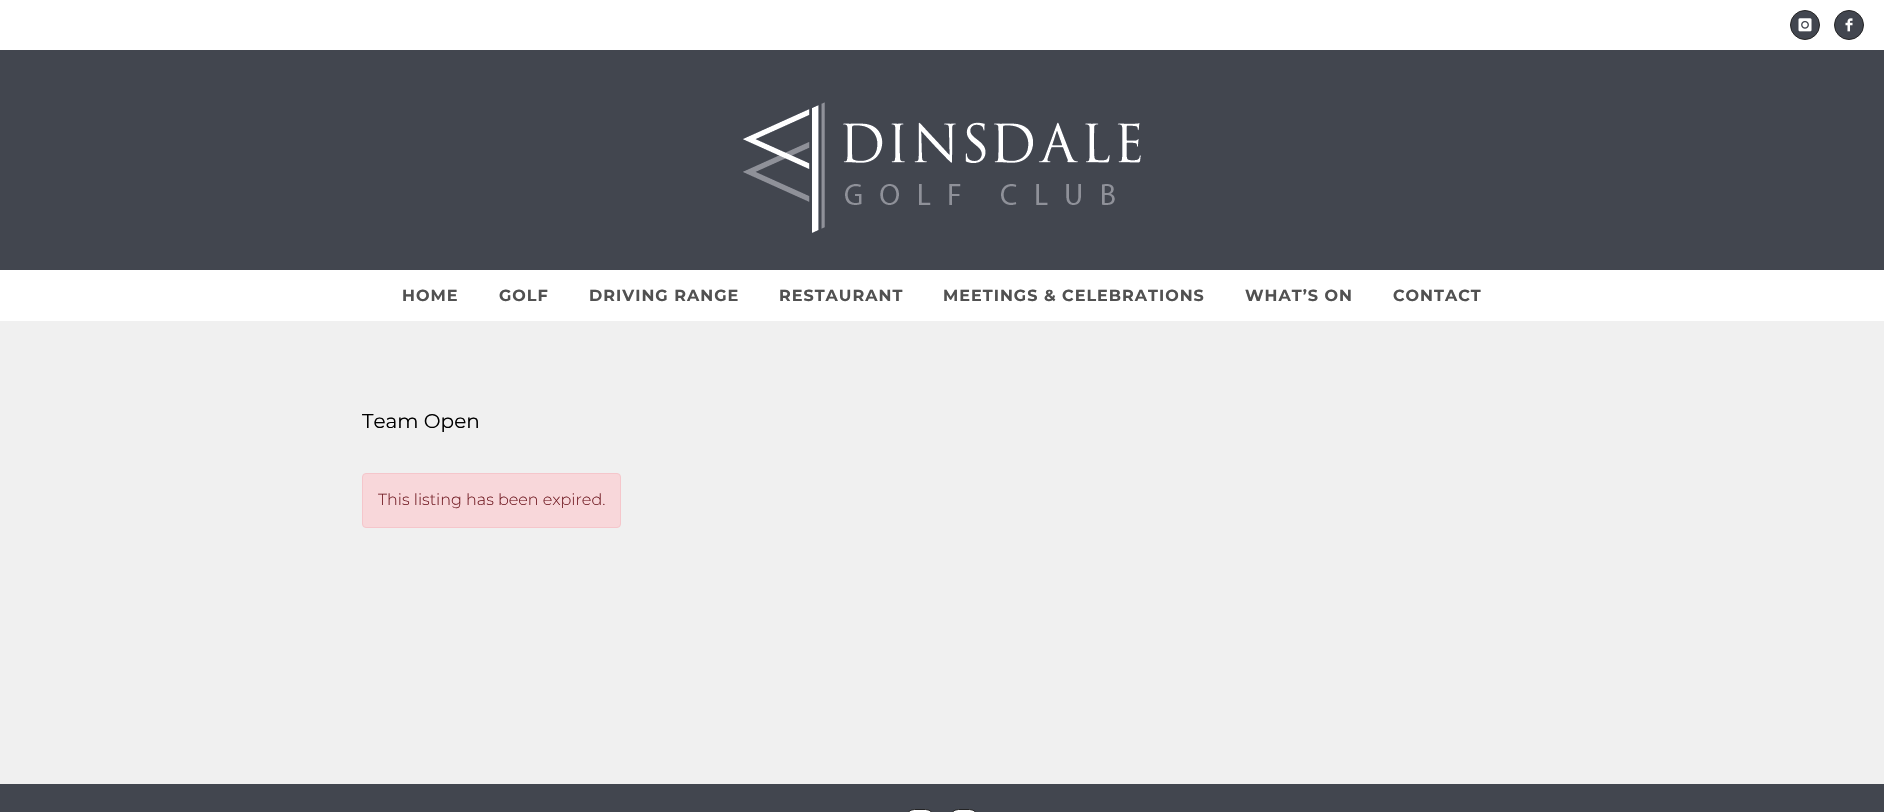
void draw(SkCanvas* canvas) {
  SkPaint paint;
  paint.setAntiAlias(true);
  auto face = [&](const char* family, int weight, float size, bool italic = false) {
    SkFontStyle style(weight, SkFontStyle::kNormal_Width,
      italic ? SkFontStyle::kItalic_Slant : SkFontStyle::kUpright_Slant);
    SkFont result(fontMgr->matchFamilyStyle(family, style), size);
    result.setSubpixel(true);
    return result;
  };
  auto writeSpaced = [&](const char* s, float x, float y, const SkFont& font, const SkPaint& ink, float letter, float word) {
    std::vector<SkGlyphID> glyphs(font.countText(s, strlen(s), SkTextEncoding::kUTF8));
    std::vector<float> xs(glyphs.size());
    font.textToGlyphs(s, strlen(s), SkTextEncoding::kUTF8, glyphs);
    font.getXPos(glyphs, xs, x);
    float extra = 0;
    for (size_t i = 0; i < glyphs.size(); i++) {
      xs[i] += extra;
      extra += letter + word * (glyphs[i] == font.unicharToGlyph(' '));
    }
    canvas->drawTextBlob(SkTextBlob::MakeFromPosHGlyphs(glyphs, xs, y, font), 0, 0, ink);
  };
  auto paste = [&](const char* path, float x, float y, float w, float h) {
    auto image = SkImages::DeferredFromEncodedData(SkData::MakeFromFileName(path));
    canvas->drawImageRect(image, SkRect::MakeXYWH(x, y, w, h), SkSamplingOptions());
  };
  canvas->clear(0xffffffff);
  paint.setColor(0xff42464f);
  canvas->drawCircle(1805, 25, 14.5f, paint);
  paint.setStroke(true);
  paint.setStrokeWidth(1);
  paint.setColor(0xff232324);
  canvas->drawCircle(1805, 25, 14.5f, paint);
  paste("img/1.png", 1798, 18, 14, 14);
  paint.setStroke(false);
  paint.setColor(0xff42464f);
  canvas->drawCircle(1849, 25, 14.5f, paint);
  paint.setStroke(true);
  paint.setColor(0xff232324);
  canvas->drawCircle(1849, 25, 14.5f, paint);
  paste("img/2.png", 1845, 18, 8, 14);
  paint.setStroke(false);
  paint.setColor(0xff42464f);
  canvas->drawRect(SkRect::MakeXYWH(0, 50, 1884, 220), paint);
  paste("img/3.png", 743, 102, 398, 131);
  paint.setColor(0xfff0f0f0);
  canvas->drawRect(SkRect::MakeXYWH(0, 321, 1884, 463), paint);
  paint.setColor(0xfff8d7da);
  canvas->drawRoundRect(SkRect::MakeXYWH(362.5f, 473.5f, 258, 54), 3.5f, 3.5f, paint);
  paint.setStroke(true);
  paint.setColor(0xfff5c6cb);
  canvas->drawRoundRect(SkRect::MakeXYWH(362.5f, 473.5f, 258, 54), 3.5f, 3.5f, paint);
  paint.setStroke(false);
  paint.setColor(0xff42464f);
  canvas->drawRect(SkRect::MakeXYWH(0, 784, 1884, 28), paint);
  paint.setColor(0xffffffff);
  canvas->drawRoundRect(SkRect::MakeXYWH(905.5f, 809.5f, 29, 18), 14.5f, 14.5f, paint);
  paint.setStroke(true);
  paint.setColor(0xff232324);
  canvas->drawRoundRect(SkRect::MakeXYWH(905.5f, 809.5f, 29, 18), 14.5f, 14.5f, paint);
  paint.setStroke(false);
  paint.setColor(0xffffffff);
  canvas->drawRoundRect(SkRect::MakeXYWH(949.5f, 809.5f, 29, 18), 14.5f, 14.5f, paint);
  paint.setStroke(true);
  paint.setColor(0xff232324);
  canvas->drawRoundRect(SkRect::MakeXYWH(949.5f, 809.5f, 29, 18), 14.5f, 14.5f, paint);
  auto f0 = face("Montserrat", 700, 16);
  paint.setStroke(false);
  paint.setColor(0xff515151);
  {
    const struct { const char* s; float x, y; } items[] = {
      {"HOME", 402, 301},
      {"GOLF", 499, 301},
      {"DRIVING RANGE", 589, 301},
      {"RESTAURANT", 779, 301},
      {"MEETINGS & CELEBRATIONS", 943, 301},
      {"WHAT’S ON", 1245, 301},
      {"CONTACT", 1393, 301},
    };
    for (auto [s, x, y] : items) {
      writeSpaced(s, x, y, f0, paint, 1, 0);
    }
  }
  auto f1 = face("Montserrat", 400, 20);
  paint.setColor(0xff000000);
  canvas->drawString("Team Open", 362, 428, f1, paint);
  auto f2 = face("Montserrat", 300, 16);
  paint.setColor(0xff721c24);
  canvas->drawString("This listing has been expired.", 378, 505, f2, paint);
}
